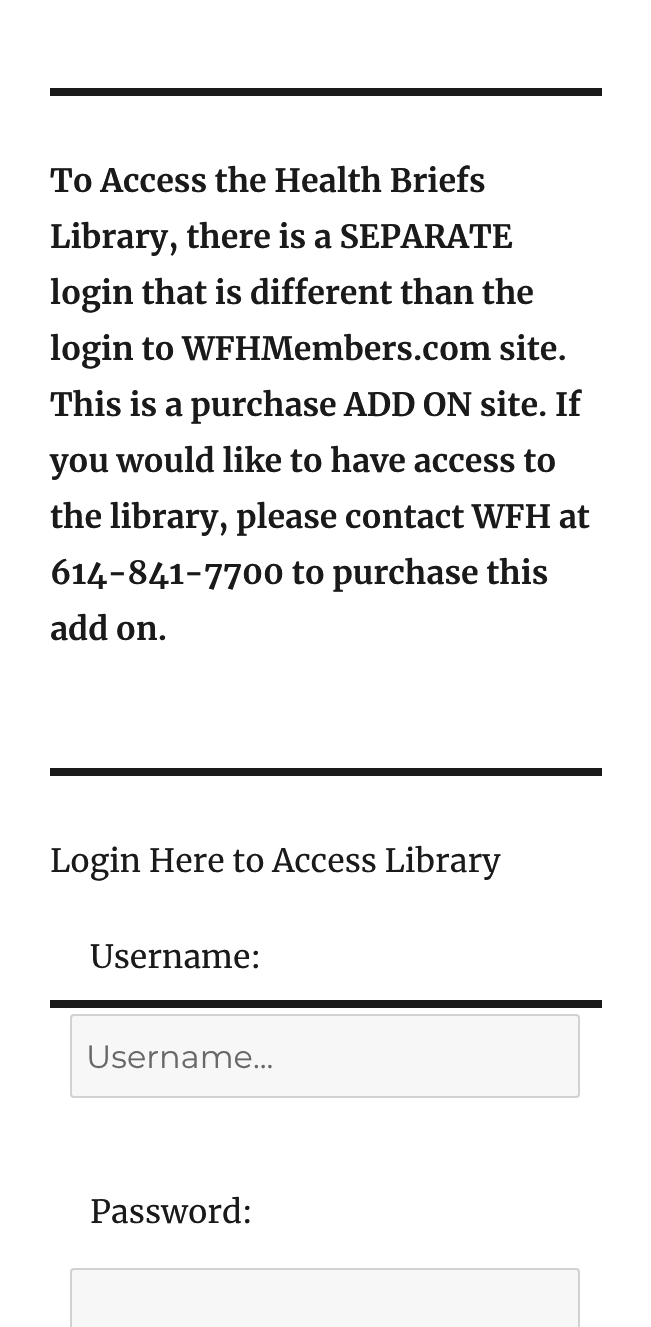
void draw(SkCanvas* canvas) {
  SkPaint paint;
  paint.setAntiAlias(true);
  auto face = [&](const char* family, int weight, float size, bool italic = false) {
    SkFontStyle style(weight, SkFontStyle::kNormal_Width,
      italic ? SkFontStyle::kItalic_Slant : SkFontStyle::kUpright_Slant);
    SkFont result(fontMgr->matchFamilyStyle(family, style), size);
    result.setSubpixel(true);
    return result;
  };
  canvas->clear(0xffffffff);
  paint.setColor(0xff1a1a1a);
  canvas->drawRect(SkRect::MakeXYWH(50, 88, 552, 8), paint);
  canvas->drawRect(SkRect::MakeXYWH(50, 768, 552, 8), paint);
  paint.setColor(0xfff7f7f7);
  canvas->drawRoundRect(SkRect::MakeXYWH(71, 1015, 508, 82), 3, 3, paint);
  paint.setStroke(true);
  paint.setStrokeWidth(2);
  paint.setColor(0xffd1d1d1);
  canvas->drawRoundRect(SkRect::MakeXYWH(71, 1015, 508, 82), 3, 3, paint);
  paint.setStroke(false);
  paint.setColor(0xfff7f7f7);
  canvas->drawRoundRect(SkRect::MakeXYWH(71, 1269, 508, 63), 3, 3, paint);
  paint.setStroke(true);
  paint.setColor(0xffd1d1d1);
  canvas->drawRoundRect(SkRect::MakeXYWH(71, 1269, 508, 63), 3, 3, paint);
  paint.setStroke(false);
  paint.setColor(0xff1a1a1a);
  canvas->drawRect(SkRect::MakeXYWH(50, 1000, 552, 8), paint);
  auto f0 = face("Merriweather", 700, 32);
  {
    const struct { const char* s; float x, y; } items[] = {
      {"To Access the Health Briefs", 50, 192},
      {"Library, there is a SEPARATE", 50, 248},
      {"login that is different than the", 50, 304},
      {"login to WFHMembers.com site.", 50, 360},
      {"This is a purchase ADD ON site. If", 50, 416},
      {"you would like to have access to", 50, 472},
      {"the library, please contact WFH at", 50, 528},
      {"614-841-7700 to purchase this", 50, 584},
      {"add on.", 50, 640},
    };
    for (auto [s, x, y] : items) {
      canvas->drawString(s, x, y, f0, paint);
    }
  }
  auto f1 = face("Merriweather", 400, 32);
  canvas->drawString("Login Here to Access Library", 50, 872, f1, paint);
  canvas->drawString("Username:", 90, 968, f1, paint);
  auto f2 = face("Montserrat", 100, 32);
  paint.setColor(0xff686868);
  canvas->drawString("Username...", 86, 1068, f2, paint);
  paint.setColor(0xff1a1a1a);
  canvas->drawString("Password:", 90, 1223, f1, paint);
}
